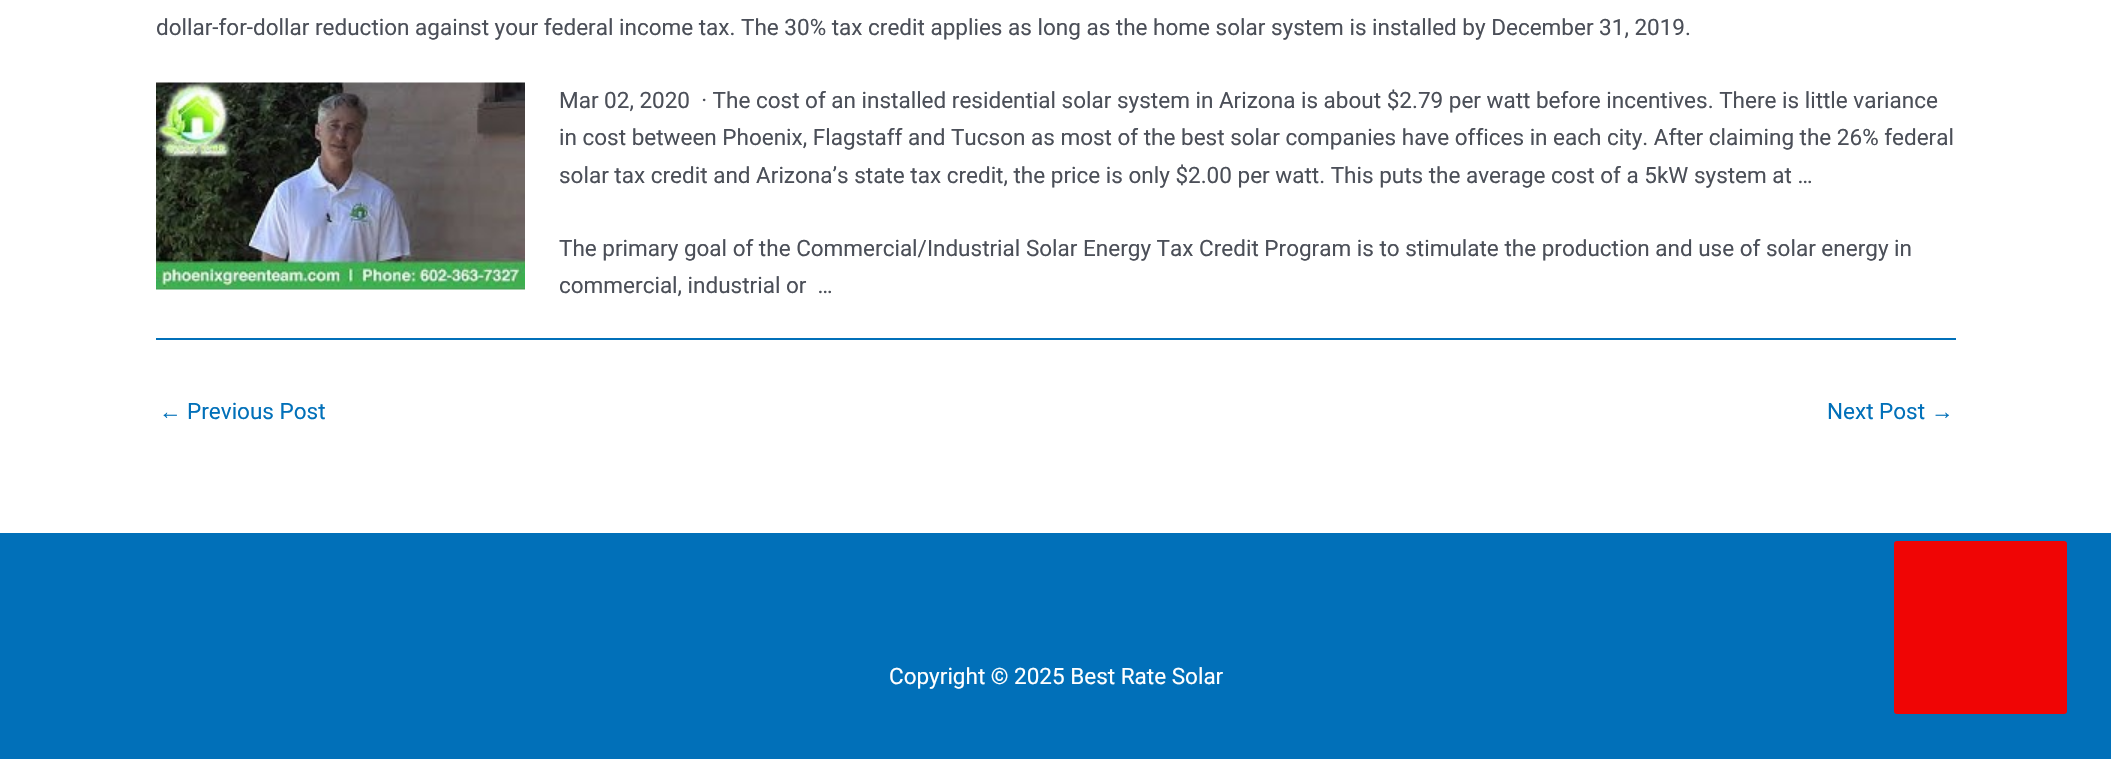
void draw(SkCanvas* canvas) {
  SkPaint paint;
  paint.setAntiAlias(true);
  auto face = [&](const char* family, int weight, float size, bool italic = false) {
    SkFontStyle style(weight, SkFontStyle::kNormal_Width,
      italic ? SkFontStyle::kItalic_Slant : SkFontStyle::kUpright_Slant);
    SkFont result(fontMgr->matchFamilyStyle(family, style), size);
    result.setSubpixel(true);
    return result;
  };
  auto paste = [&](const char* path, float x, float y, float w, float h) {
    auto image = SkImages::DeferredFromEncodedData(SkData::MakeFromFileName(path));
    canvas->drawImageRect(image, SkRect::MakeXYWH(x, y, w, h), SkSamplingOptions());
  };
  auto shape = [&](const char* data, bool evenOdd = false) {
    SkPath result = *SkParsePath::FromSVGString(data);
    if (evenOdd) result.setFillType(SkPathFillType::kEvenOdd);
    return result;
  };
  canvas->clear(0xffffffff);
  paste("img/1.png", 156, 82, 369, 208);
  paint.setColor(0xff0170b9);
  canvas->drawRect(SkRect::MakeXYWH(156, 338, 1800, 2), paint);
  canvas->drawRect(SkRect::MakeXYWH(0, 533, 2111, 226), paint);
  paint.setColor(0xfff00505);
  canvas->drawPath(shape("M2064 714H1897C1895 714 1894 713 1894 711V544C1894 542 1895 541 1897 541H2064C2066 541 2067 542 2067 544V711C2067 713 2066 714 2064 714Z"), paint);
  auto f0 = face("Roboto", 400, 22.5f);
  paint.setColor(0xff4b4f58);
  {
    const struct { const char* s; float x, y; } items[] = {
      {"dollar-for-dollar reduction against your federal income tax. The 30% tax credit applies as long as the home solar system is installed by December 31, 2019.", 156, 35},
      {"Mar 02, 2020  · The cost of an installed residential solar system in Arizona is about $2.79 per watt before incentives. There is little variance", 559, 108},
      {"in cost between Phoenix, Flagstaff and Tucson as most of the best solar companies have offices in each city. After claiming the 26% federal", 559, 145},
      {"solar tax credit and Arizona’s state tax credit, the price is only $2.00 per watt. This puts the average cost of a 5kW system at …", 559, 183},
      {"The primary goal of the Commercial/Industrial Solar Energy Tax Credit Program is to stimulate the production and use of solar energy in", 559, 256},
      {"commercial, industrial or  …", 559, 293},
    };
    for (auto [s, x, y] : items) {
      canvas->drawString(s, x, y, f0, paint);
    }
  }
  auto f1 = face("Liberation Sans", 400, 22.5f);
  paint.setColor(0xff0170b9);
  canvas->drawString("←", 159, 419, f1, paint);
  canvas->drawString("Previous Post", 187, 419, f0, paint);
  canvas->drawString("Next Post", 1827, 419, f0, paint);
  canvas->drawString("→", 1931, 419, f1, paint);
  paint.setColor(0xffffffff);
  canvas->drawString("Copyright © 2025 Best Rate Solar", 889, 684, f0, paint);
}
